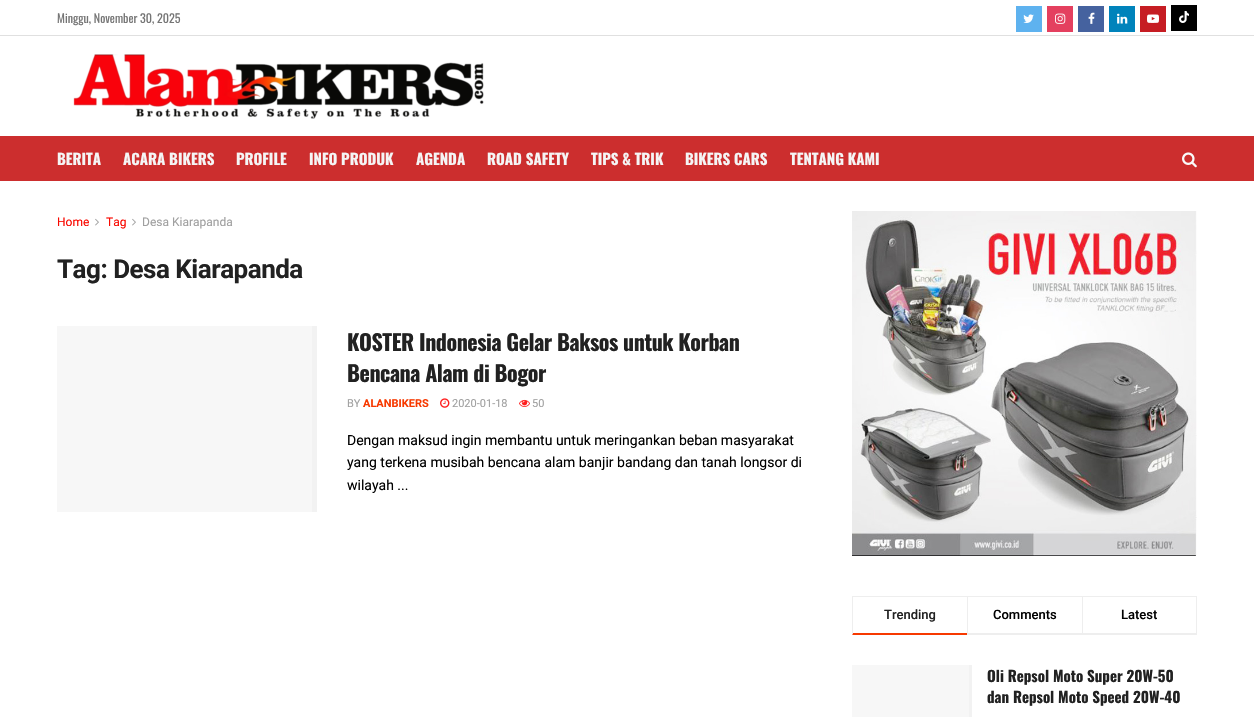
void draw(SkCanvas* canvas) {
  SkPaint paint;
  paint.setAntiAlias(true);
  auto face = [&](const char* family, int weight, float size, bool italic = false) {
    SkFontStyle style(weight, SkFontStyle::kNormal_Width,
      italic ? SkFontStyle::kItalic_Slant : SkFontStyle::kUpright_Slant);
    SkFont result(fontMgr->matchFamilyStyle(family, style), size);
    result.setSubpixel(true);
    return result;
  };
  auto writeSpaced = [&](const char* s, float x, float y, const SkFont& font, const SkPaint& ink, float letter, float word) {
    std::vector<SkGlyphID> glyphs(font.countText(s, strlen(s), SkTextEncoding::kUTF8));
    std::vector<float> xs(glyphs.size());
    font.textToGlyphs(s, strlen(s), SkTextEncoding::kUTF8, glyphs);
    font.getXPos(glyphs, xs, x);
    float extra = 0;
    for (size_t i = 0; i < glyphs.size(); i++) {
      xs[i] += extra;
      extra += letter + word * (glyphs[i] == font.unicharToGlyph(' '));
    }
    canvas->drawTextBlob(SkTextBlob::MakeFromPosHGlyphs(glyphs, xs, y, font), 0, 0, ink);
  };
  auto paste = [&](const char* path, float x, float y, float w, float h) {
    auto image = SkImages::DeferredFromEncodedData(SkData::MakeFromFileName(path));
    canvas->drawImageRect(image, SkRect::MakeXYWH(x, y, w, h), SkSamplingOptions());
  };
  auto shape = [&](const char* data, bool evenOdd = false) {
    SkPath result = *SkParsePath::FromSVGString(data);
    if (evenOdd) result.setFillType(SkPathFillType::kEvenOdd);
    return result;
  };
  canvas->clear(0xffffffff);
  paint.setColor(0xffe0e0e0);
  canvas->drawRect(SkRect::MakeXYWH(0, 35, 1254, 1), paint);
  paint.setColor(0xff5eb2ef);
  canvas->drawRect(SkRect::MakeXYWH(1016, 6, 26, 26), paint);
  paste("img/1.png", 1023, 14, 11, 9);
  paint.setColor(0xffe4405f);
  canvas->drawRect(SkRect::MakeXYWH(1047, 6, 26, 26), paint);
  paste("img/2.png", 1055, 13, 11, 11);
  paint.setColor(0xff45629f);
  canvas->drawRect(SkRect::MakeXYWH(1078, 6, 26, 26), paint);
  paste("img/3.png", 1088, 12, 7, 12);
  paint.setColor(0xff0083bb);
  canvas->drawRect(SkRect::MakeXYWH(1109, 6, 26, 26), paint);
  paste("img/4.png", 1117, 13, 11, 11);
  paint.setColor(0xffc61d23);
  canvas->drawRect(SkRect::MakeXYWH(1140, 6, 26, 26), paint);
  paste("img/5.png", 1147, 14, 12, 9);
  paint.setColor(0xff000000);
  canvas->drawRect(SkRect::MakeXYWH(1171, 5, 26, 26), paint);
  paste("img/6.png", 1179, 11, 10, 12);
  paste("img/7.png", 73, 54, 411, 65);
  paint.setColor(0xffcc2e2e);
  canvas->drawRect(SkRect::MakeXYWH(0, 136, 1254, 45), paint);
  paste("img/8.png", 1182, 152, 15, 16);
  paste("img/9.png", 95, 218, 4, 8);
  paste("img/9.png", 132, 218, 4, 8);
  paint.setColor(0xfff7f7f7);
  canvas->drawRect(SkRect::MakeXYWH(57, 326, 255, 186), paint);
  paint.setColor(0xfff2f2f2);
  canvas->drawRect(SkRect::MakeXYWH(312, 326, 5, 186), paint);
  paste("img/10.png", 440, 398, 10, 10);
  paste("img/11.png", 519, 399, 11, 8);
  paste("img/12.png", 852, 211, 345, 345);
  paint.setColor(0xffeeeeee);
  canvas->drawRect(SkRect::MakeXYWH(852, 596, 345, 1), paint);
  paint.setColor(0xfff73900);
  canvas->drawPath(shape("M967 635H852L853 633H967Z"), paint);
  paint.setColor(0xffeeeeee);
  canvas->drawPath(shape("M852 635V596L853 597V633Z"), paint);
  {
    const struct { float x, y, w, h; SkColor color; } items[] = {
      {967, 633, 115, 2, 0xffeeeeee},
      {967, 596, 1, 39, 0xffeeeeee},
      {1196, 596, 1, 39, 0xffeeeeee},
      {1082, 633, 115, 2, 0xffeeeeee},
      {1082, 596, 1, 39, 0xffeeeeee},
      {852, 665, 117, 52, 0xfff7f7f7},
      {969, 665, 3, 52, 0xfff2f2f2},
    };
    for (auto [x, y, w, h, color] : items) {
      paint.setColor(color);
      canvas->drawRect(SkRect::MakeXYWH(x, y, w, h), paint);
    }
  }
  auto f0 = face("Oswald", 400, 12);
  paint.setColor(0xff757575);
  canvas->drawString("Minggu, November 30, 2025", 57, 23, f0, paint);
  auto f1 = face("Oswald", 700, 15);
  paint.setColor(0xfff5f5f5);
  {
    const struct { const char* s; float x, y; } items[] = {
      {"BERITA", 57, 165},
      {"ACARA BIKERS", 123, 165},
      {"PROFILE", 236, 165},
      {"INFO PRODUK", 309, 165},
      {"AGENDA", 416, 165},
      {"ROAD SAFETY", 487, 165},
      {"TIPS & TRIK", 591, 165},
      {"BIKERS CARS", 685, 165},
      {"TENTANG KAMI", 790, 165},
    };
    for (auto [s, x, y] : items) {
      canvas->drawString(s, x, y, f1, paint);
    }
  }
  auto f2 = face("Roboto", 400, 12);
  paint.setColor(0xfff90800);
  canvas->drawString("Home", 57, 226, f2, paint);
  canvas->drawString("Tag", 106, 226, f2, paint);
  paint.setColor(0xffa0a0a0);
  canvas->drawString("Desa Kiarapanda", 142, 226, f2, paint);
  auto f3 = face("Roboto", 700, 26);
  paint.setColor(0xff212121);
  writeSpaced("Tag: Desa Kiarapanda", 57, 278, f3, paint, -0.5f, 0);
  auto f4 = face("Oswald", 700, 22);
  writeSpaced("KOSTER Indonesia Gelar Baksos untuk Korban", 347, 351, f4, paint, -0.45f, 0);
  writeSpaced("Bencana Alam di Bogor", 347, 382, f4, paint, -0.45f, 0);
  auto f5 = face("Roboto", 400, 11);
  paint.setColor(0xffa0a0a0);
  canvas->drawString("BY", 347, 407, f5, paint);
  auto f6 = face("Roboto", 700, 11);
  paint.setColor(0xfff73900);
  canvas->drawString("ALANBIKERS", 363, 407, f6, paint);
  paint.setColor(0xffa0a0a0);
  canvas->drawString("2020-01-18", 452, 407, f5, paint);
  canvas->drawString("50", 532, 407, f5, paint);
  auto f7 = face("Roboto", 400, 14);
  paint.setColor(0xff000000);
  {
    const struct { const char* s; float x, y; } items[] = {
      {"Dengan maksud ingin membantu untuk meringankan beban masyarakat", 347, 445},
      {"yang terkena musibah bencana alam banjir bandang dan tanah longsor di", 347, 467},
      {"wilayah ...", 347, 490},
    };
    for (auto [s, x, y] : items) {
      canvas->drawString(s, x, y, f7, paint);
    }
  }
  auto f8 = face("Roboto", 500, 13);
  paint.setColor(0xff212121);
  canvas->drawString("Trending", 884, 619, f8, paint);
  paint.setColor(0xff000000);
  canvas->drawString("Comments", 993, 619, f8, paint);
  canvas->drawString("Latest", 1121, 619, f8, paint);
  paint.setColor(0xff212121);
  canvas->drawString("Oli Repsol Moto Super 20W-50", 987, 682, f1, paint);
  canvas->drawString("dan Repsol Moto Speed 20W-40", 987, 703, f1, paint);
}
